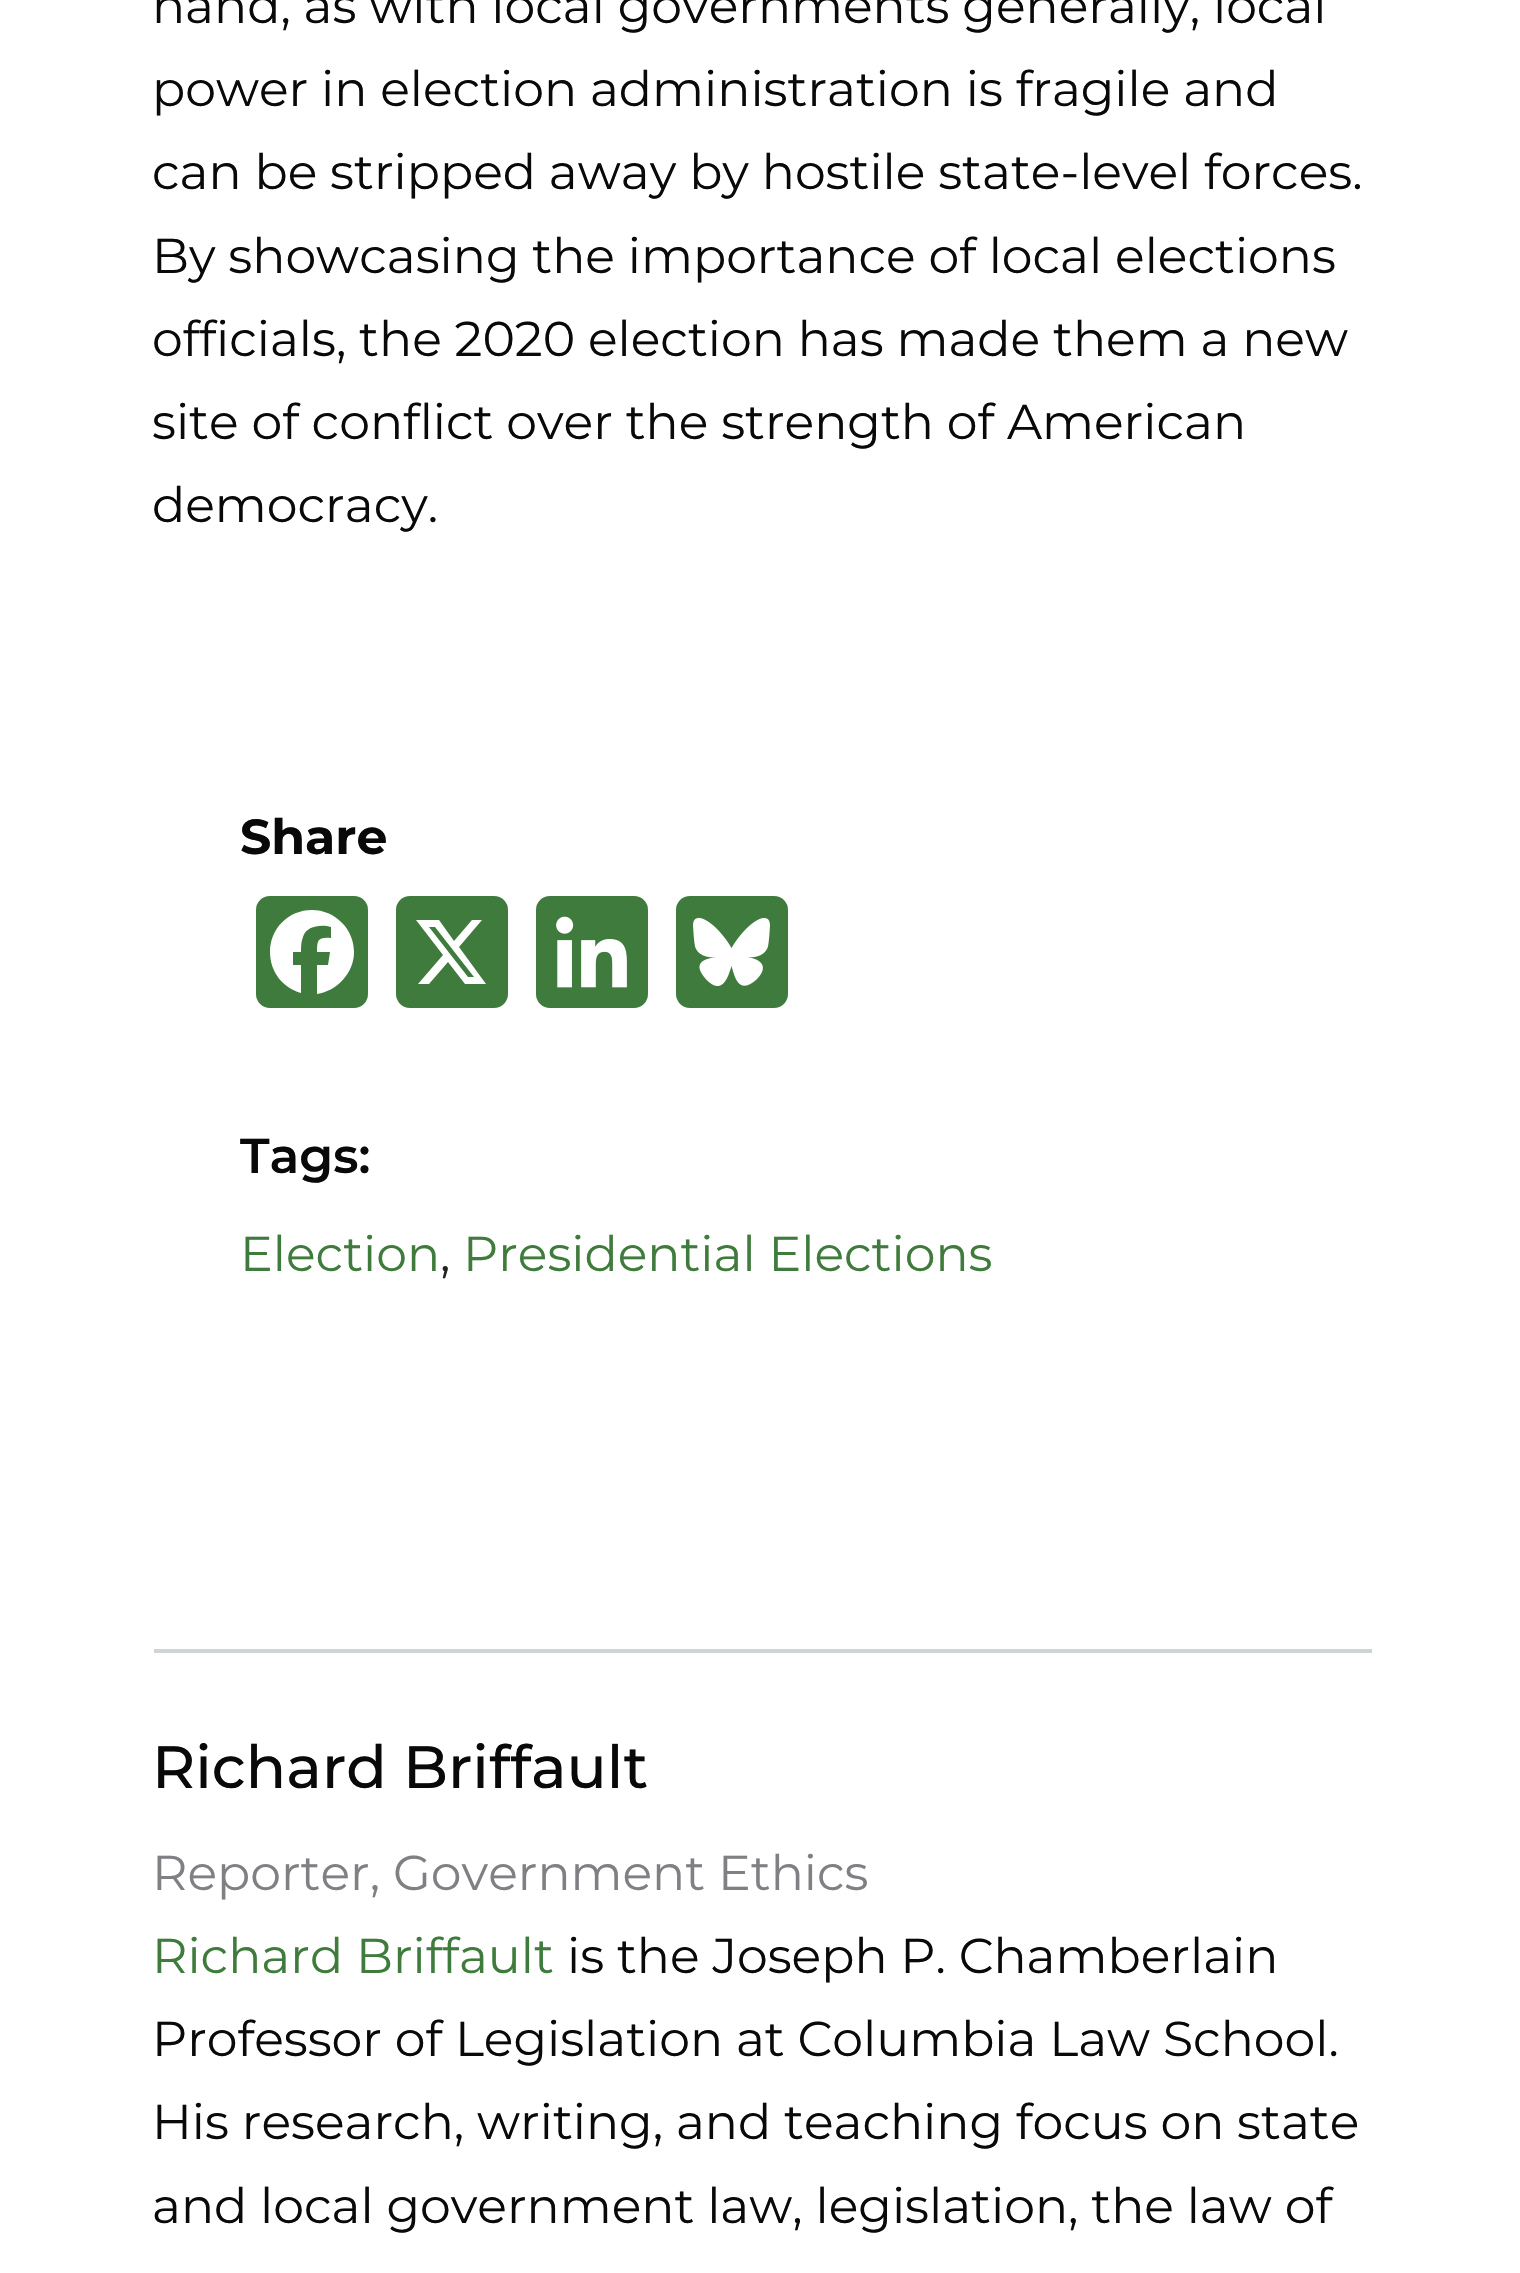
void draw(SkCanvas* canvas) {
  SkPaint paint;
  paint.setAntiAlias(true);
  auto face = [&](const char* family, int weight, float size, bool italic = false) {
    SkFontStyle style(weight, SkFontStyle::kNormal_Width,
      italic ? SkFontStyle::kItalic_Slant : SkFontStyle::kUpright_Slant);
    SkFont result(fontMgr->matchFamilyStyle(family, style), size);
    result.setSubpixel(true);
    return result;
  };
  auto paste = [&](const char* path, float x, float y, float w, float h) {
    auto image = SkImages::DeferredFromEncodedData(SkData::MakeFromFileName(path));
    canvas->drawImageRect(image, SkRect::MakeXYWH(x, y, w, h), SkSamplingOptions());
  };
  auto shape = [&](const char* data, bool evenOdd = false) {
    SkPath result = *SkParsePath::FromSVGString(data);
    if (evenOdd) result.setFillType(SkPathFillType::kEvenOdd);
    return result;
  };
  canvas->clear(0xffffffff);
  paint.setColor(0xff3f7b3c);
  canvas->drawRoundRect(SkRect::MakeXYWH(256, 896, 112, 112), 14, 14, paint);
  paint.setColor(0xffffffff);
  canvas->drawPath(shape("M354 952C354 929 335 910 312 910C288 910 270 929 270 952C270 972 283 988 301 993V965H293V952H301C301 947 301 942 303 937C306 926 321 924 331 927V938C318 937 317 940 317 952H330L328 965H317V994C337 991 354 973 354 952"), paint);
  paint.setColor(0xff3f7b3c);
  canvas->drawRoundRect(SkRect::MakeXYWH(396, 896, 112, 112), 14, 14, paint);
  paint.setColor(0xffffffff);
  canvas->drawPath(shape("M472 920H482L459 947L486 984H465L448 962L429 984H418L443 955L416 920H439L454 941ZM468 977H474L435 927H429Z"), paint);
  paint.setColor(0xff3f7b3c);
  canvas->drawRoundRect(SkRect::MakeXYWH(536, 896, 112, 112), 14, 14, paint);
  paste("img/1.png", 556, 916, 71, 72);
  canvas->drawRoundRect(SkRect::MakeXYWH(676, 896, 112, 112), 14, 14, paint);
  paste("img/2.png", 693, 917, 77, 69);
  paint.setColor(0xffcfd4d7);
  canvas->drawRect(SkRect::MakeXYWH(154, 1649, 1218, 4), paint);
  auto f0 = face("Montserrat", 400, 49);
  paint.setColor(0xff090909);
  {
    const struct { const char* s; float x, y; } items[] = {
      {"hand, as with local governments generally, local", 152, 23},
      {"power in election administration is fragile and", 152, 106},
      {"can be stripped away by hostile state-level forces.", 152, 189},
      {"By showcasing the importance of local elections", 152, 273},
      {"officials, the 2020 election has made them a new", 152, 356},
      {"site of conflict over the strength of American", 152, 439},
      {"democracy.", 152, 522},
    };
    for (auto [s, x, y] : items) {
      canvas->drawString(s, x, y, f0, paint);
    }
  }
  auto f1 = face("Montserrat", 700, 49);
  canvas->drawString("Share", 240, 854, f1, paint);
  auto f2 = face("Montserrat", 600, 49);
  canvas->drawString("Tags:", 240, 1173, f2, paint);
  paint.setColor(0xff3f7b3c);
  canvas->drawString("Election", 240, 1271, f0, paint);
  paint.setColor(0xff21231f);
  canvas->drawString(",", 440, 1271, f0, paint);
  paint.setColor(0xff3f7b3c);
  canvas->drawString("Presidential Elections", 463, 1271, f0, paint);
  auto f3 = face("Montserrat", 500, 59.5f);
  paint.setColor(0xff090909);
  canvas->drawString("Richard Briffault", 152, 1788, f3, paint);
  paint.setColor(0xff7f8084);
  canvas->drawString("Reporter, Government Ethics", 152, 1890, f0, paint);
  paint.setColor(0xff3f7b3c);
  canvas->drawString("Richard Briffault", 152, 1973, f0, paint);
  paint.setColor(0xff090909);
  {
    const struct { const char* s; float x, y; } items[] = {
      {"is the Joseph P. Chamberlain", 567, 1973},
      {"Professor of Legislation at Columbia Law School.", 152, 2056},
      {"His research, writing, and teaching focus on state", 152, 2139},
      {"and local government law, legislation, the law of", 152, 2223},
    };
    for (auto [s, x, y] : items) {
      canvas->drawString(s, x, y, f0, paint);
    }
  }
}
